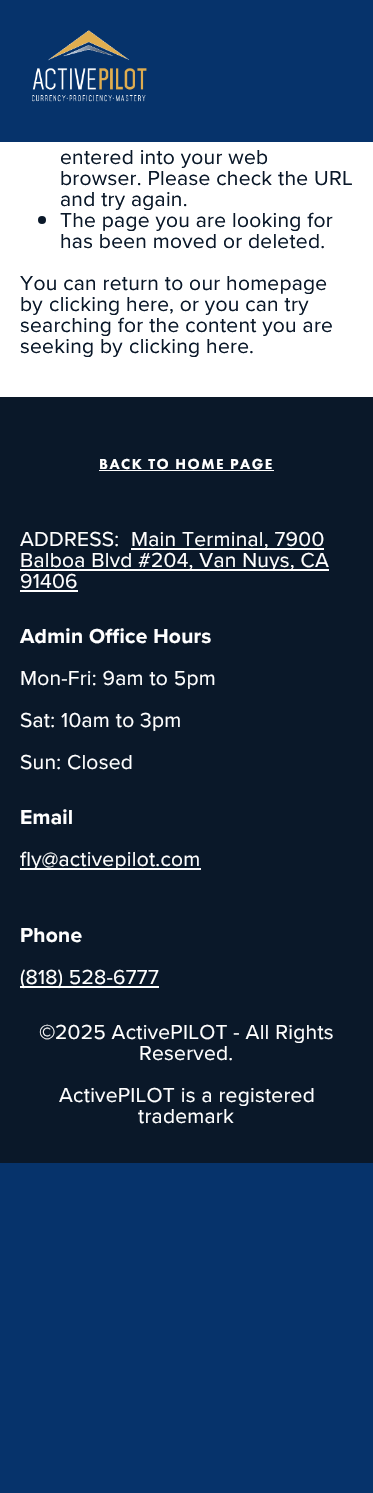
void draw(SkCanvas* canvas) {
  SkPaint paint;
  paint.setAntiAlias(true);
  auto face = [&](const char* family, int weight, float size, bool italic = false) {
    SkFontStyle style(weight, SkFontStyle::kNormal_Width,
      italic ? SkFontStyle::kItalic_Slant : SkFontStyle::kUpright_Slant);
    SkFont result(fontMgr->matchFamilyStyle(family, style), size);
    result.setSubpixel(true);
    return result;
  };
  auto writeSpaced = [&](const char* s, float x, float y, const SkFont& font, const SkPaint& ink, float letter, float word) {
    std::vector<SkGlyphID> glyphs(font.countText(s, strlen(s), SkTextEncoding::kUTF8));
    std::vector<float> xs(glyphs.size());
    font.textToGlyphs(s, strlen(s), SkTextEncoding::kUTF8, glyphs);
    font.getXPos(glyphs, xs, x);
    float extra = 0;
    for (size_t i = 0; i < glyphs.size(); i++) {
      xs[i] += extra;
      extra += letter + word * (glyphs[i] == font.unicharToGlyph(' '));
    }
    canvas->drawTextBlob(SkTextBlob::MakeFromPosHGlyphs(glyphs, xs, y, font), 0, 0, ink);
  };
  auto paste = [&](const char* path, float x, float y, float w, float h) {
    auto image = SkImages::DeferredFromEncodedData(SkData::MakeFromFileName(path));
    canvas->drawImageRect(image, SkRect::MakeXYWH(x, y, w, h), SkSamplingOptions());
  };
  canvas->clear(0xff06336b);
  paint.setColor(0xffffffff);
  canvas->drawRect(SkRect::MakeXYWH(0, 142, 373, 255), paint);
  paste("img/1.png", 32, 30, 115, 72);
  paint.setColor(0xff0a1829);
  canvas->drawCircle(42, 220, 4, paint);
  {
    const struct { float x, y, w, h; SkColor color; } items[] = {
      {0, 397, 373, 766, 0xff0a1829},
      {99, 470, 175, 1, 0xffffffff},
      {131, 548, 193, 2, 0xffffffff},
      {20, 569, 309, 2, 0xffffffff},
      {20, 590, 58, 2, 0xffffffff},
      {20, 868, 181, 2, 0xffffffff},
      {20, 986, 139, 2, 0xffffffff},
    };
    for (auto [x, y, w, h, color] : items) {
      paint.setColor(color);
      canvas->drawRect(SkRect::MakeXYWH(x, y, w, h), paint);
    }
  }
  auto f0 = face("Proxima Nova", 400, 21);
  paint.setColor(0xff0a1829);
  {
    const struct { const char* s; float x, y; } items[] = {
      {"entered into your web", 60, 164},
      {"browser. Please check the URL", 60, 185},
      {"and try again.", 60, 206},
      {"The page you are looking for", 60, 227},
      {"has been moved or deleted.", 60, 248},
      {"You can return to our homepage", 20, 290},
      {"by", 20, 311},
      {"clicking here", 49, 311},
      {", or you can try", 169, 311},
      {"searching for the content you are", 20, 332},
      {"seeking by", 20, 353},
      {"clicking here", 129, 353},
      {".", 249, 353},
    };
    for (auto [s, x, y] : items) {
      writeSpaced(s, x, y, f0, paint, 0.25f, 0);
    }
  }
  auto f1 = face("Futura PT", 900, 15);
  paint.setColor(0xffffffff);
  writeSpaced("BACK TO HOME PAGE", 99, 469, f1, paint, 1.5f, 0);
  {
    const struct { const char* s; float x, y; } items[] = {
      {"ADDRESS:", 20, 546},
      {"Main Terminal, 7900", 131, 546},
      {"Balboa Blvd #204, Van Nuys, CA", 20, 567},
      {"91406", 20, 588},
    };
    for (auto [s, x, y] : items) {
      writeSpaced(s, x, y, f0, paint, 0.25f, 0);
    }
  }
  auto f2 = face("Proxima Nova", 700, 21);
  writeSpaced("Admin Office Hours", 20, 643, f2, paint, 0.25f, 0);
  {
    const struct { const char* s; float x, y; } items[] = {
      {"Mon-Fri: 9am to 5pm", 20, 685},
      {"Sat: 10am to 3pm", 20, 727},
      {"Sun: Closed", 20, 769},
    };
    for (auto [s, x, y] : items) {
      writeSpaced(s, x, y, f0, paint, 0.25f, 0);
    }
  }
  writeSpaced("Email", 20, 824, f2, paint, 0.25f, 0);
  writeSpaced("fly@activepilot.com", 20, 866, f0, paint, 0.25f, 0);
  writeSpaced("Phone", 20, 942, f2, paint, 0.25f, 0);
  writeSpaced("(818) 528-6777", 20, 984, f0, paint, 0.25f, 0);
  writeSpaced("©", 39, 1039, f2, paint, 0.25f, 0);
  {
    const struct { const char* s; float x, y; } items[] = {
      {"2025 ActivePILOT - All Rights", 55, 1039},
      {"Reserved.", 139, 1060},
      {"ActivePILOT is a registered", 59, 1102},
      {"trademark", 138, 1123},
    };
    for (auto [s, x, y] : items) {
      writeSpaced(s, x, y, f0, paint, 0.25f, 0);
    }
  }
}
